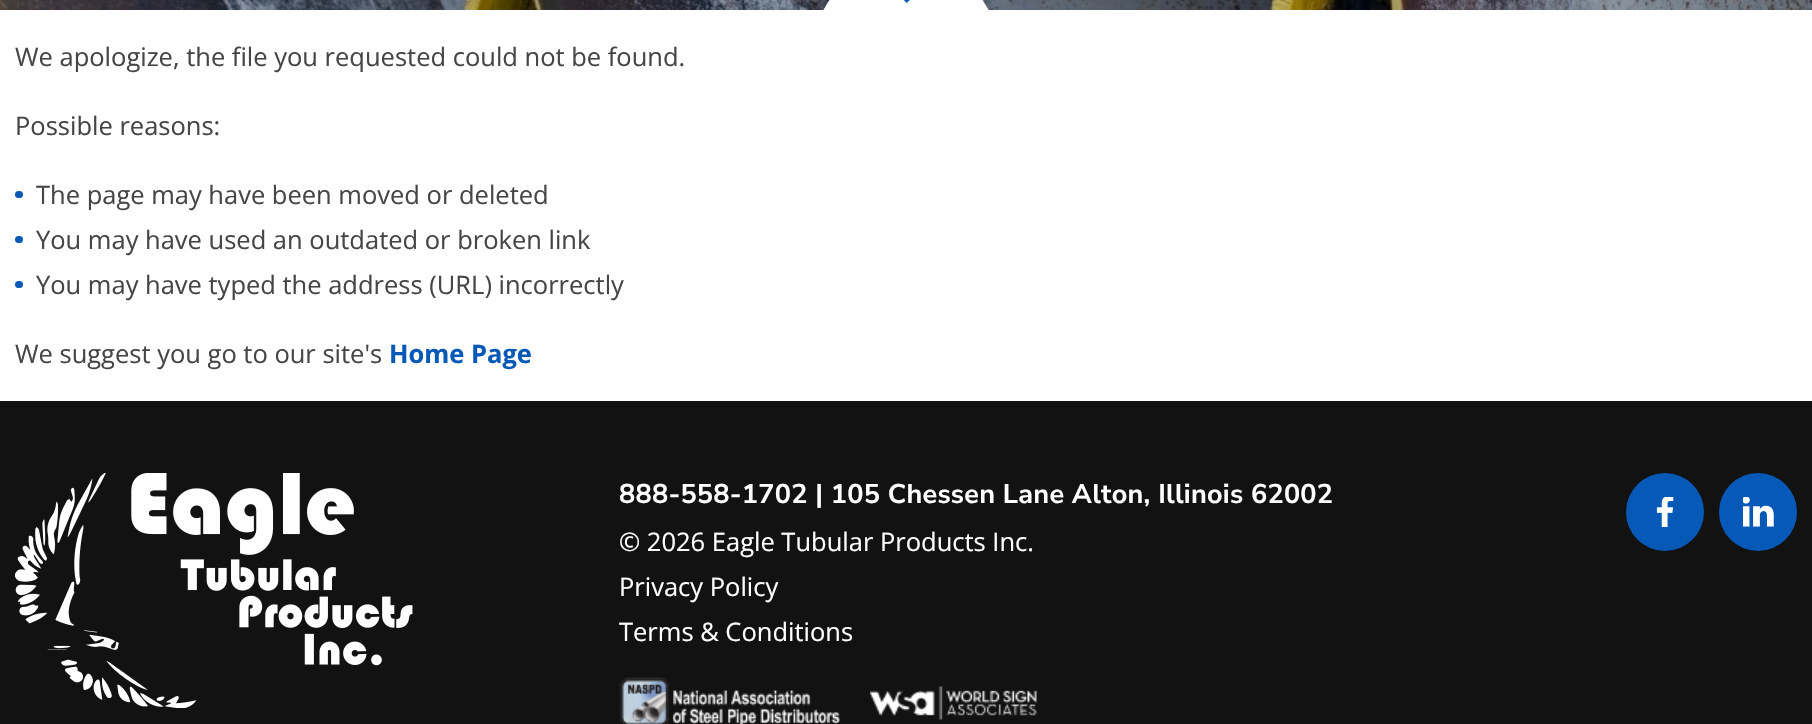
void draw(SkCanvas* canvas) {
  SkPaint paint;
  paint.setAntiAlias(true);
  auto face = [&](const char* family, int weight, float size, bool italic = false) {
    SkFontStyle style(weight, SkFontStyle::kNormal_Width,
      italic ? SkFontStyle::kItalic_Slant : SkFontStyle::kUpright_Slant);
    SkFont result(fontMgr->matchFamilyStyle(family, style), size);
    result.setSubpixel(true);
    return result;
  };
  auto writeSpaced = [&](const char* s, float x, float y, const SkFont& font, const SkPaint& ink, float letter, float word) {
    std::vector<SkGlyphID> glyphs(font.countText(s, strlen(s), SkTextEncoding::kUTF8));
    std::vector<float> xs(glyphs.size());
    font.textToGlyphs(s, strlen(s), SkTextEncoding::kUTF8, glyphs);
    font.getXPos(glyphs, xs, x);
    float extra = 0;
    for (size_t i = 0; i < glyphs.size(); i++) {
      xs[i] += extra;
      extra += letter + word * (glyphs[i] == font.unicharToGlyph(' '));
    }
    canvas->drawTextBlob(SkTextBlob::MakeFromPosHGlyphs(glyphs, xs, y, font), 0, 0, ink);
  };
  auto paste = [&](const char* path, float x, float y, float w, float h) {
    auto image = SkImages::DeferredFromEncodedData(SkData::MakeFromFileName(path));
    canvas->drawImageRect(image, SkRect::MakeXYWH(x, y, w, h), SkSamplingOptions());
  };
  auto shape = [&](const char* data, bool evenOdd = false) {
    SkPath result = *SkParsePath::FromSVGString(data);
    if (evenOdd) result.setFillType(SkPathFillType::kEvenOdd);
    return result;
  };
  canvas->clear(0xffffffff);
  paste("img/2.png", 0, 0, 1812, 10);
  paint.setColor(0xffffffff);
  canvas->drawPath(shape("M906-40C957.5-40 999 1.5 999 53V11H813V53C813 1.5 854.5-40 906-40Z"), paint);
  paste("img/1.png", 903, 0, 7, 3);
  paint.setColor(0xff0659b7);
  canvas->drawRoundRect(SkRect::MakeXYWH(15, 191, 8, 7), 3.5f, 3.5f, paint);
  canvas->drawRoundRect(SkRect::MakeXYWH(15, 236, 8, 7), 3.5f, 3.5f, paint);
  canvas->drawRoundRect(SkRect::MakeXYWH(15, 281, 8, 7), 3.5f, 3.5f, paint);
  paint.setColor(0xff121212);
  canvas->drawRect(SkRect::MakeXYWH(0, 401, 1812, 323), paint);
  paste("img/3.png", 15, 473, 398, 235);
  paste("img/4.png", 619, 677, 221, 47);
  paste("img/5.png", 870, 686, 167, 34);
  paint.setColor(0xff0659b7);
  canvas->drawCircle(1665, 512, 39, paint);
  paste("img/6.png", 1656, 497, 18, 30);
  canvas->drawCircle(1758, 512, 39, paint);
  paste("img/7.png", 1743, 497, 31, 30);
  auto f0 = face("Open Sans", 400, 25.5f);
  paint.setColor(0xff464646);
  {
    const struct { const char* s; float x, y; } items[] = {
      {"We apologize, the file you requested could not be found.", 15, 66},
      {"Possible reasons:", 15, 135},
      {"The page may have been moved or deleted", 36, 204},
      {"You may have used an outdated or broken link", 36, 249},
      {"You may have typed the address (URL) incorrectly", 36, 294},
      {"We suggest you go to our site's", 15, 363},
    };
    for (auto [s, x, y] : items) {
      canvas->drawString(s, x, y, f0, paint);
    }
  }
  auto f1 = face("Open Sans", 700, 25.5f);
  paint.setColor(0xff0659b7);
  canvas->drawString("Home Page", 389, 363, f1, paint);
  auto f2 = face("Nunito Sans", 700, 27);
  paint.setColor(0xffffffff);
  writeSpaced("888-558-1702 | 105 Chessen Lane Alton, Illinois 62002", 619, 503, f2, paint, 0.27f, 0);
  {
    const struct { const char* s; float x, y; } items[] = {
      {"© 2026 Eagle Tubular Products Inc.", 619, 551},
      {"Privacy Policy", 619, 596},
      {"Terms & Conditions", 619, 641},
    };
    for (auto [s, x, y] : items) {
      canvas->drawString(s, x, y, f0, paint);
    }
  }
}
